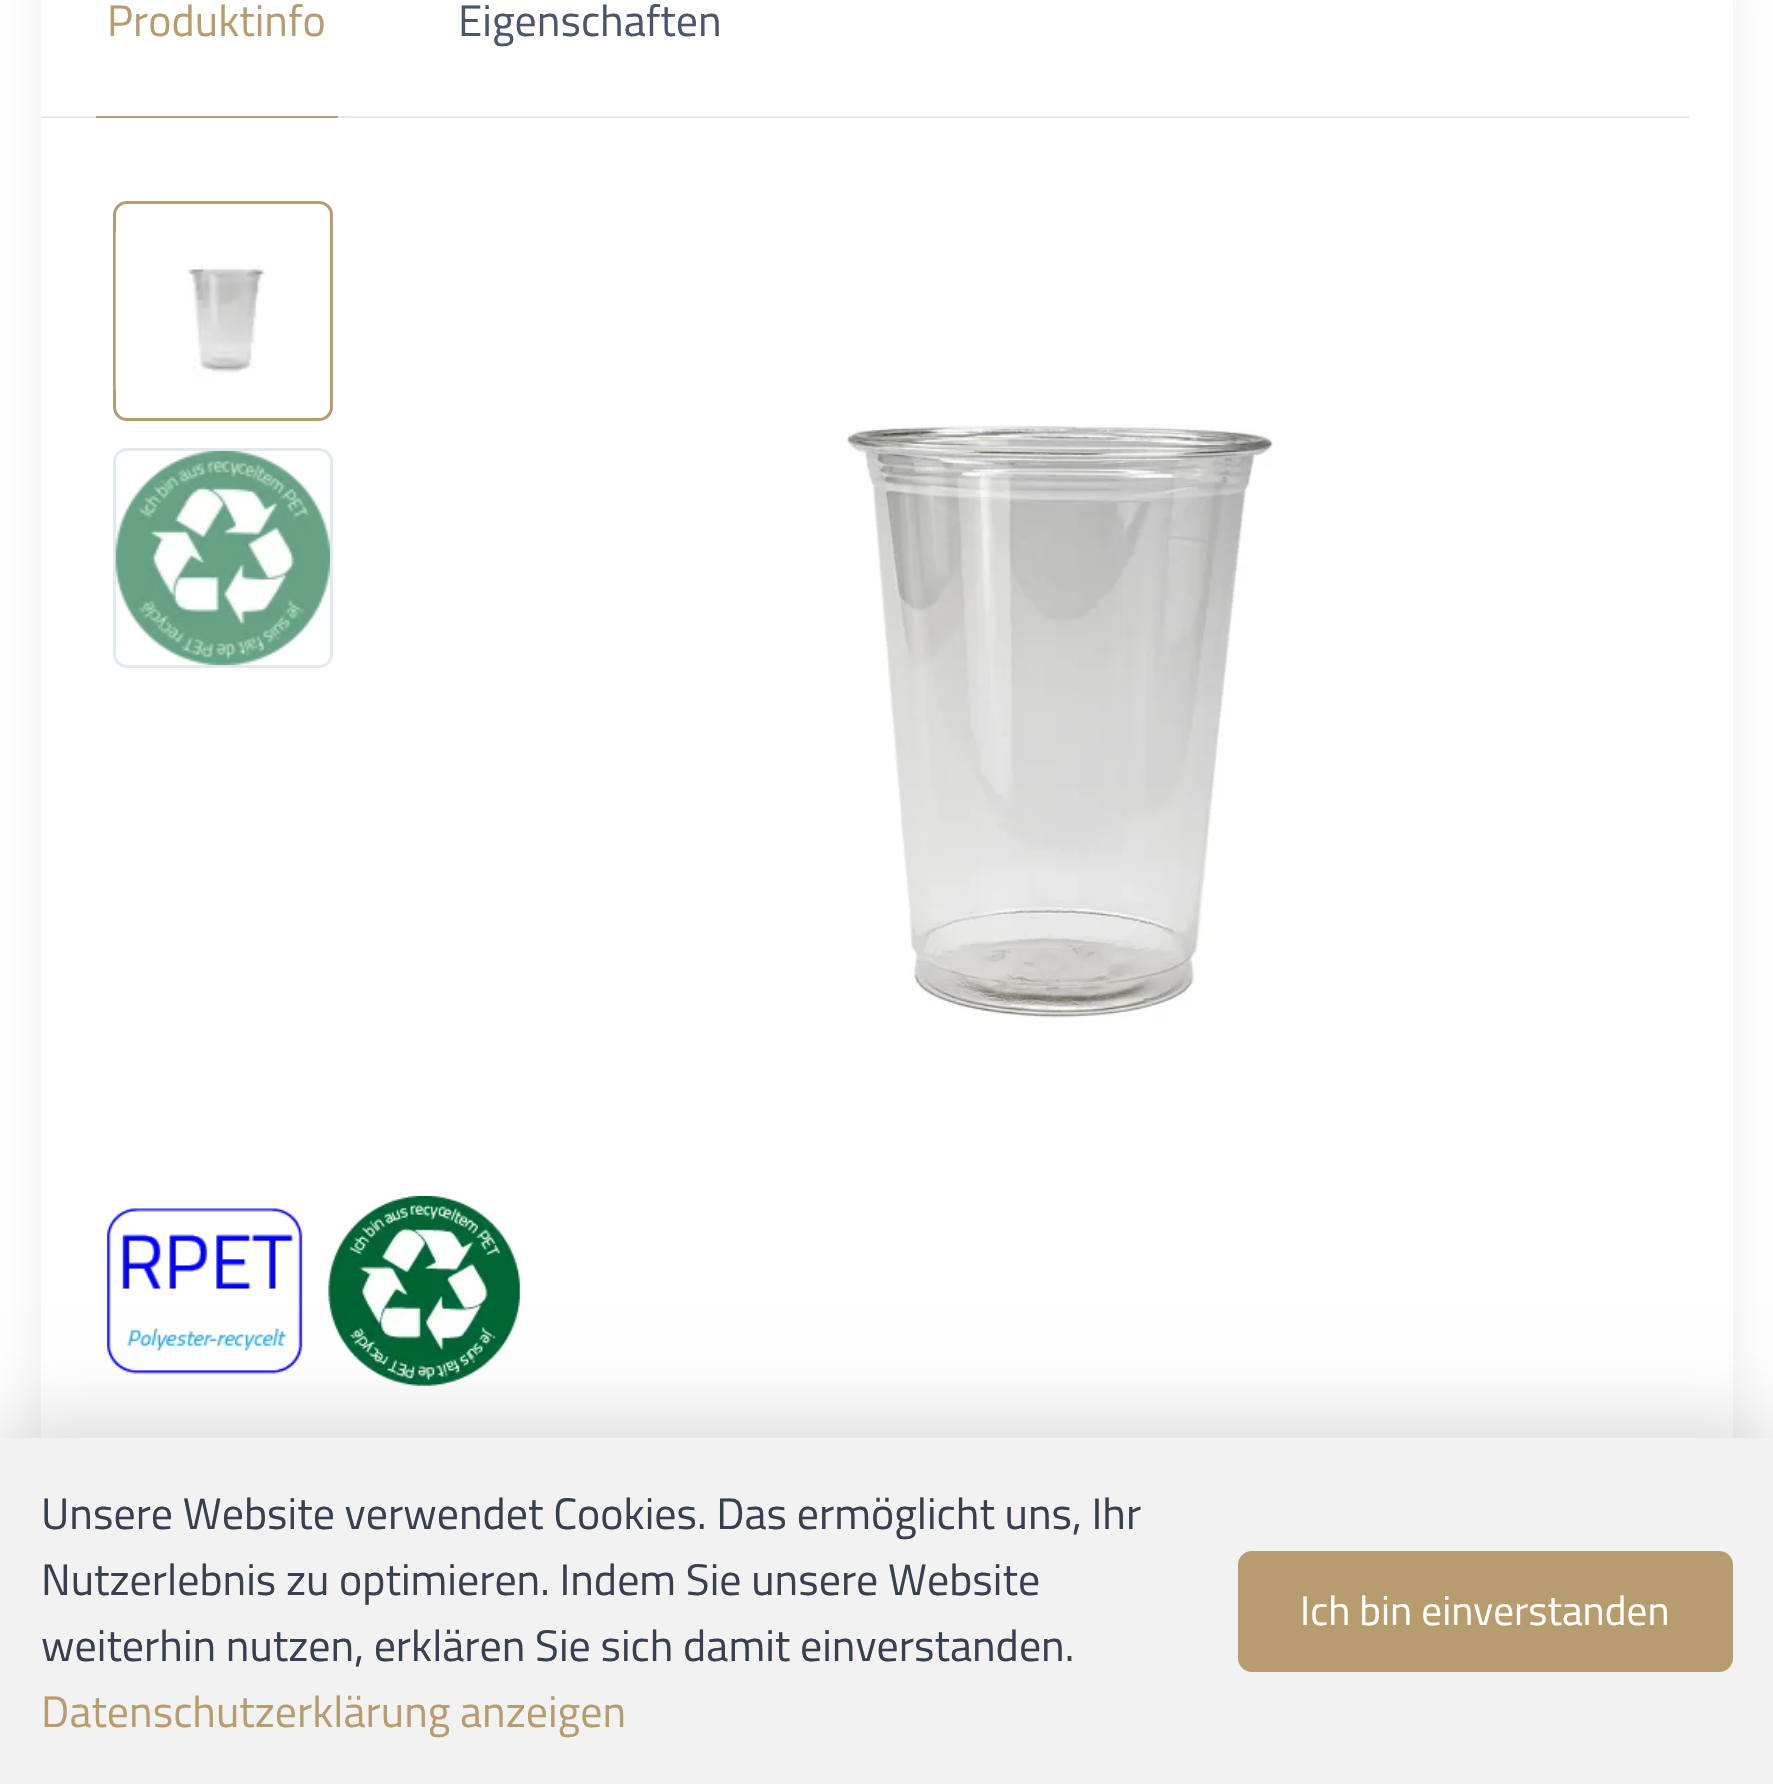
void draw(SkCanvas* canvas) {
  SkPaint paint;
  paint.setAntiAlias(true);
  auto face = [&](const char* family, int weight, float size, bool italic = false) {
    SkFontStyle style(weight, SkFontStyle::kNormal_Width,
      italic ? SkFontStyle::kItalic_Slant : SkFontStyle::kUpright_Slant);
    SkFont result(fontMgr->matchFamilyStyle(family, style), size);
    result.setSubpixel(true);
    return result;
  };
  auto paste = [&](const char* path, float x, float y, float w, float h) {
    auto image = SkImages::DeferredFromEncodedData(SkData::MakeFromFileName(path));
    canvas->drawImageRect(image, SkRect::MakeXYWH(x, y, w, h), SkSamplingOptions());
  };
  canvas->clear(0xffffffff);
  paint.setColor(0x1a000000);
  paint.setMaskFilter(SkMaskFilter::MakeBlur(kNormal_SkBlurStyle, 33.5f));
  canvas->drawRoundRect(SkRect::MakeXYWH(58, -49, 1658, 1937), 3, 3, paint);
  paint.setMaskFilter(nullptr);
  {
    const struct { float x, y, w, h; SkColor color; } items[] = {
      {41, 0, 1692, 1438, 0xffffffff},
      {41, 116, 1648, 2, 0xffe3e9ef},
      {96, 116, 242, 2, 0xffb79d6e},
    };
    for (auto [x, y, w, h, color] : items) {
      paint.setColor(color);
      canvas->drawRect(SkRect::MakeXYWH(x, y, w, h), paint);
    }
  }
  paint.setStroke(true);
  paint.setStrokeWidth(3);
  canvas->drawRoundRect(SkRect::MakeXYWH(114.5f, 202.5f, 217, 217), 12.5f, 12.5f, paint);
  paste("img/1.png", 115, 230, 150, 161);
  paint.setColor(0xffe3e9ef);
  canvas->drawRoundRect(SkRect::MakeXYWH(114.5f, 449.5f, 217, 217), 12.5f, 12.5f, paint);
  paste("img/2.png", 115, 450, 215, 216);
  paste("img/3.png", 846, 424, 427, 598);
  paste("img/4.png", 107, 1196, 413, 190);
  paint.setStroke(false);
  paint.setColor(0x33000000);
  paint.setMaskFilter(SkMaskFilter::MakeBlur(kNormal_SkBlurStyle, 44));
  canvas->drawRect(SkRect::MakeXYWH(0, 1438, 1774, 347), paint);
  paint.setMaskFilter(nullptr);
  paint.setColor(0xfff2f2f2);
  canvas->drawRect(SkRect::MakeXYWH(0, 1438, 1773, 346), paint);
  paint.setColor(0xffb79d6e);
  canvas->drawRoundRect(SkRect::MakeXYWH(1239.5f, 1552.5f, 492, 118), 12.5f, 12.5f, paint);
  paint.setStroke(true);
  canvas->drawRoundRect(SkRect::MakeXYWH(1239.5f, 1552.5f, 492, 118), 12.5f, 12.5f, paint);
  auto f0 = face("Titillium Web", 400, 44);
  paint.setStroke(false);
  canvas->drawString("Produktinfo", 107, 36, f0, paint);
  paint.setColor(0xff4b566b);
  canvas->drawString("Eigenschaften", 458, 36, f0, paint);
  paint.setColor(0xff373f50);
  {
    const struct { const char* s; float x, y; } items[] = {
      {"Unsere Website verwendet Cookies. Das ermöglicht uns, Ihr", 41, 1529},
      {"Nutzerlebnis zu optimieren. Indem Sie unsere Website", 41, 1595},
      {"weiterhin nutzen, erklären Sie sich damit einverstanden.", 41, 1661},
    };
    for (auto [s, x, y] : items) {
      canvas->drawString(s, x, y, f0, paint);
    }
  }
  paint.setColor(0xffb79d6e);
  canvas->drawString("Datenschutzerklärung anzeigen", 41, 1727, f0, paint);
  auto f1 = face("Titillium Web", 400, 41.25f);
  paint.setColor(0xffffffff);
  canvas->drawString("Ich bin einverstanden", 1300, 1625, f1, paint);
}
